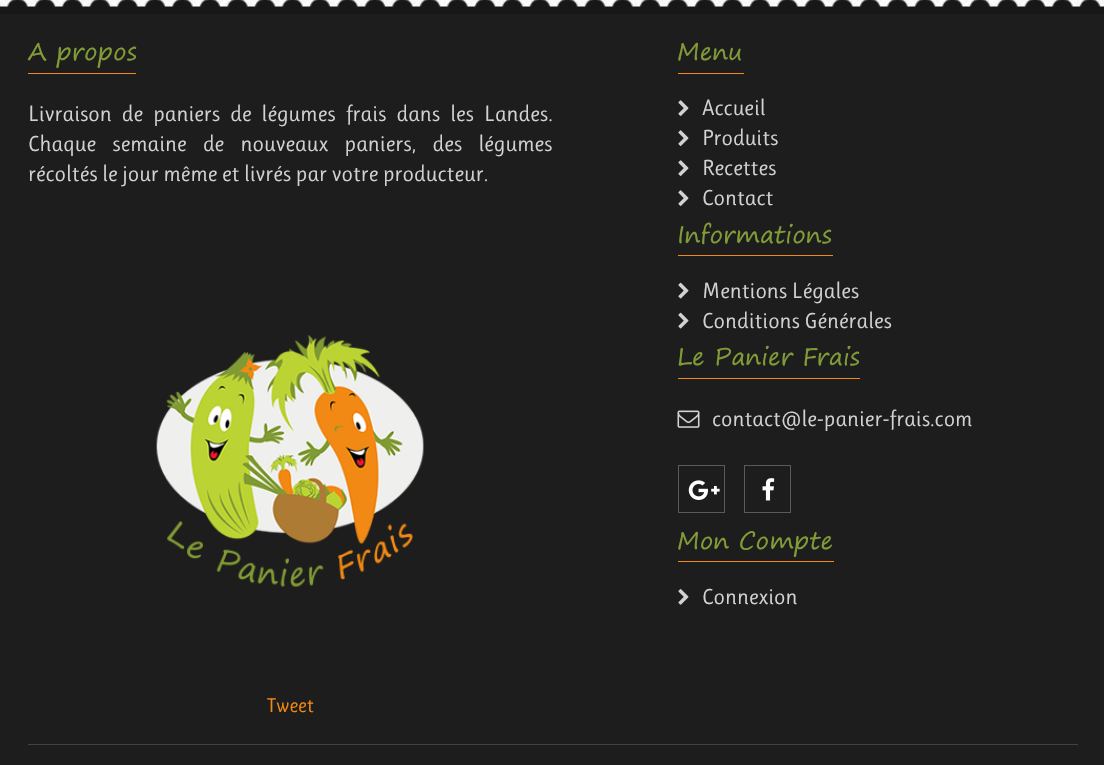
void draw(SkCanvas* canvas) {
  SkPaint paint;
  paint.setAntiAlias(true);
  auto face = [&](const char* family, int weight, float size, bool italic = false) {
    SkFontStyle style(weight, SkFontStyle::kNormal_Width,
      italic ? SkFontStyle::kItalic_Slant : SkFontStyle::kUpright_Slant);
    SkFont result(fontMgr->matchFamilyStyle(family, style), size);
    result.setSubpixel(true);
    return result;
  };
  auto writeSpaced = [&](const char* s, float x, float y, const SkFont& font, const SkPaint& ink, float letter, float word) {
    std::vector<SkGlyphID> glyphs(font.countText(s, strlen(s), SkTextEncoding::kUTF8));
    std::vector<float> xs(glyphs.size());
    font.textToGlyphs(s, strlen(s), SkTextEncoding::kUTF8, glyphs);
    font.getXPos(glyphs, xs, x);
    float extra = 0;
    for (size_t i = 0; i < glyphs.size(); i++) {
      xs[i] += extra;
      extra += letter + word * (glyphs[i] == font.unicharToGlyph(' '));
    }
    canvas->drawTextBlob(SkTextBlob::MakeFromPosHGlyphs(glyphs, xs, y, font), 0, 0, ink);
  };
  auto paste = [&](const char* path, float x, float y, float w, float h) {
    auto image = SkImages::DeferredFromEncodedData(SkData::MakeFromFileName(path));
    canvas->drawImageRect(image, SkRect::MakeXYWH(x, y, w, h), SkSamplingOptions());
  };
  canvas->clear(0xffffffff);
  paste("img/1.png", 0, 0, 1104, 7);
  paint.setColor(0xff1d1d1d);
  canvas->drawRect(SkRect::MakeXYWH(0, 14, 1104, 751), paint);
  paste("img/2.png", 0, 0, 1104, 14);
  paint.setColor(0xfff18917);
  canvas->drawRect(SkRect::MakeXYWH(28, 73, 108, 1), paint);
  canvas->drawRect(SkRect::MakeXYWH(678, 73, 66, 1), paint);
  paste("img/3.png", 678, 100, 11, 16);
  paste("img/3.png", 678, 130, 11, 16);
  paste("img/3.png", 678, 160, 11, 16);
  paste("img/3.png", 678, 190, 11, 16);
  canvas->drawRect(SkRect::MakeXYWH(678, 255, 155, 1), paint);
  paste("img/4.png", 678, 282, 11, 17);
  paste("img/4.png", 678, 312, 11, 17);
  canvas->drawRect(SkRect::MakeXYWH(678, 378, 182, 1), paint);
  paste("img/5.png", 677, 410, 23, 18);
  paint.setStroke(true);
  paint.setStrokeWidth(1);
  paint.setColor(0xff5a5a5a);
  canvas->drawRect(SkRect::MakeXYWH(678.5f, 465.5f, 46, 47), paint);
  paste("img/6.png", 688, 480, 32, 20);
  canvas->drawRect(SkRect::MakeXYWH(744.5f, 465.5f, 46, 47), paint);
  paste("img/7.png", 762, 478, 13, 23);
  paint.setStroke(false);
  paint.setColor(0xfff18917);
  canvas->drawRect(SkRect::MakeXYWH(678, 561, 156, 1), paint);
  paste("img/8.png", 678, 589, 11, 16);
  paste("img/9.png", 156, 335, 268, 252);
  paint.setColor(0xff424242);
  canvas->drawRect(SkRect::MakeXYWH(28, 744, 1050, 1), paint);
  auto f0 = face("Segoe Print", 400, 24);
  paint.setColor(0xff819b37);
  canvas->drawString("A propos", 28, 60, f0, paint);
  auto f1 = face("Ruluko", 400, 22);
  paint.setColor(0xffd2d2d2);
  writeSpaced("Livraison de paniers de légumes frais dans les Landes.", 28, 121, f1, paint, 0, 5.5f);
  writeSpaced("Chaque semaine de nouveaux paniers, des légumes", 28, 151, f1, paint, 0, 11.75f);
  canvas->drawString("récoltés le jour même et livrés par votre producteur.", 28, 181, f1, paint);
  paint.setColor(0xff819b37);
  canvas->drawString("Menu", 677, 60, f0, paint);
  paint.setColor(0xffd2d2d2);
  {
    const struct { const char* s; float x, y; } items[] = {
      {"Accueil", 702, 115},
      {"Produits", 702, 145},
      {"Recettes", 702, 175},
      {"Contact", 702, 205},
    };
    for (auto [s, x, y] : items) {
      canvas->drawString(s, x, y, f1, paint);
    }
  }
  paint.setColor(0xff819b37);
  canvas->drawString("Informations", 677, 243, f0, paint);
  paint.setColor(0xffd2d2d2);
  canvas->drawString("Mentions Légales", 702, 298, f1, paint);
  canvas->drawString("Conditions Générales", 702, 328, f1, paint);
  paint.setColor(0xff819b37);
  canvas->drawString("Le Panier Frais", 677, 365, f0, paint);
  paint.setColor(0xffd2d2d2);
  canvas->drawString("contact@le-panier-frais.com", 712, 426, f1, paint);
  paint.setColor(0xff819b37);
  canvas->drawString("Mon Compte", 677, 549, f0, paint);
  paint.setColor(0xffd2d2d2);
  canvas->drawString("Connexion", 702, 604, f1, paint);
  auto f2 = face("Ruluko", 400, 20);
  paint.setColor(0xfff18914);
  canvas->drawString("Tweet", 267, 712, f2, paint);
}
